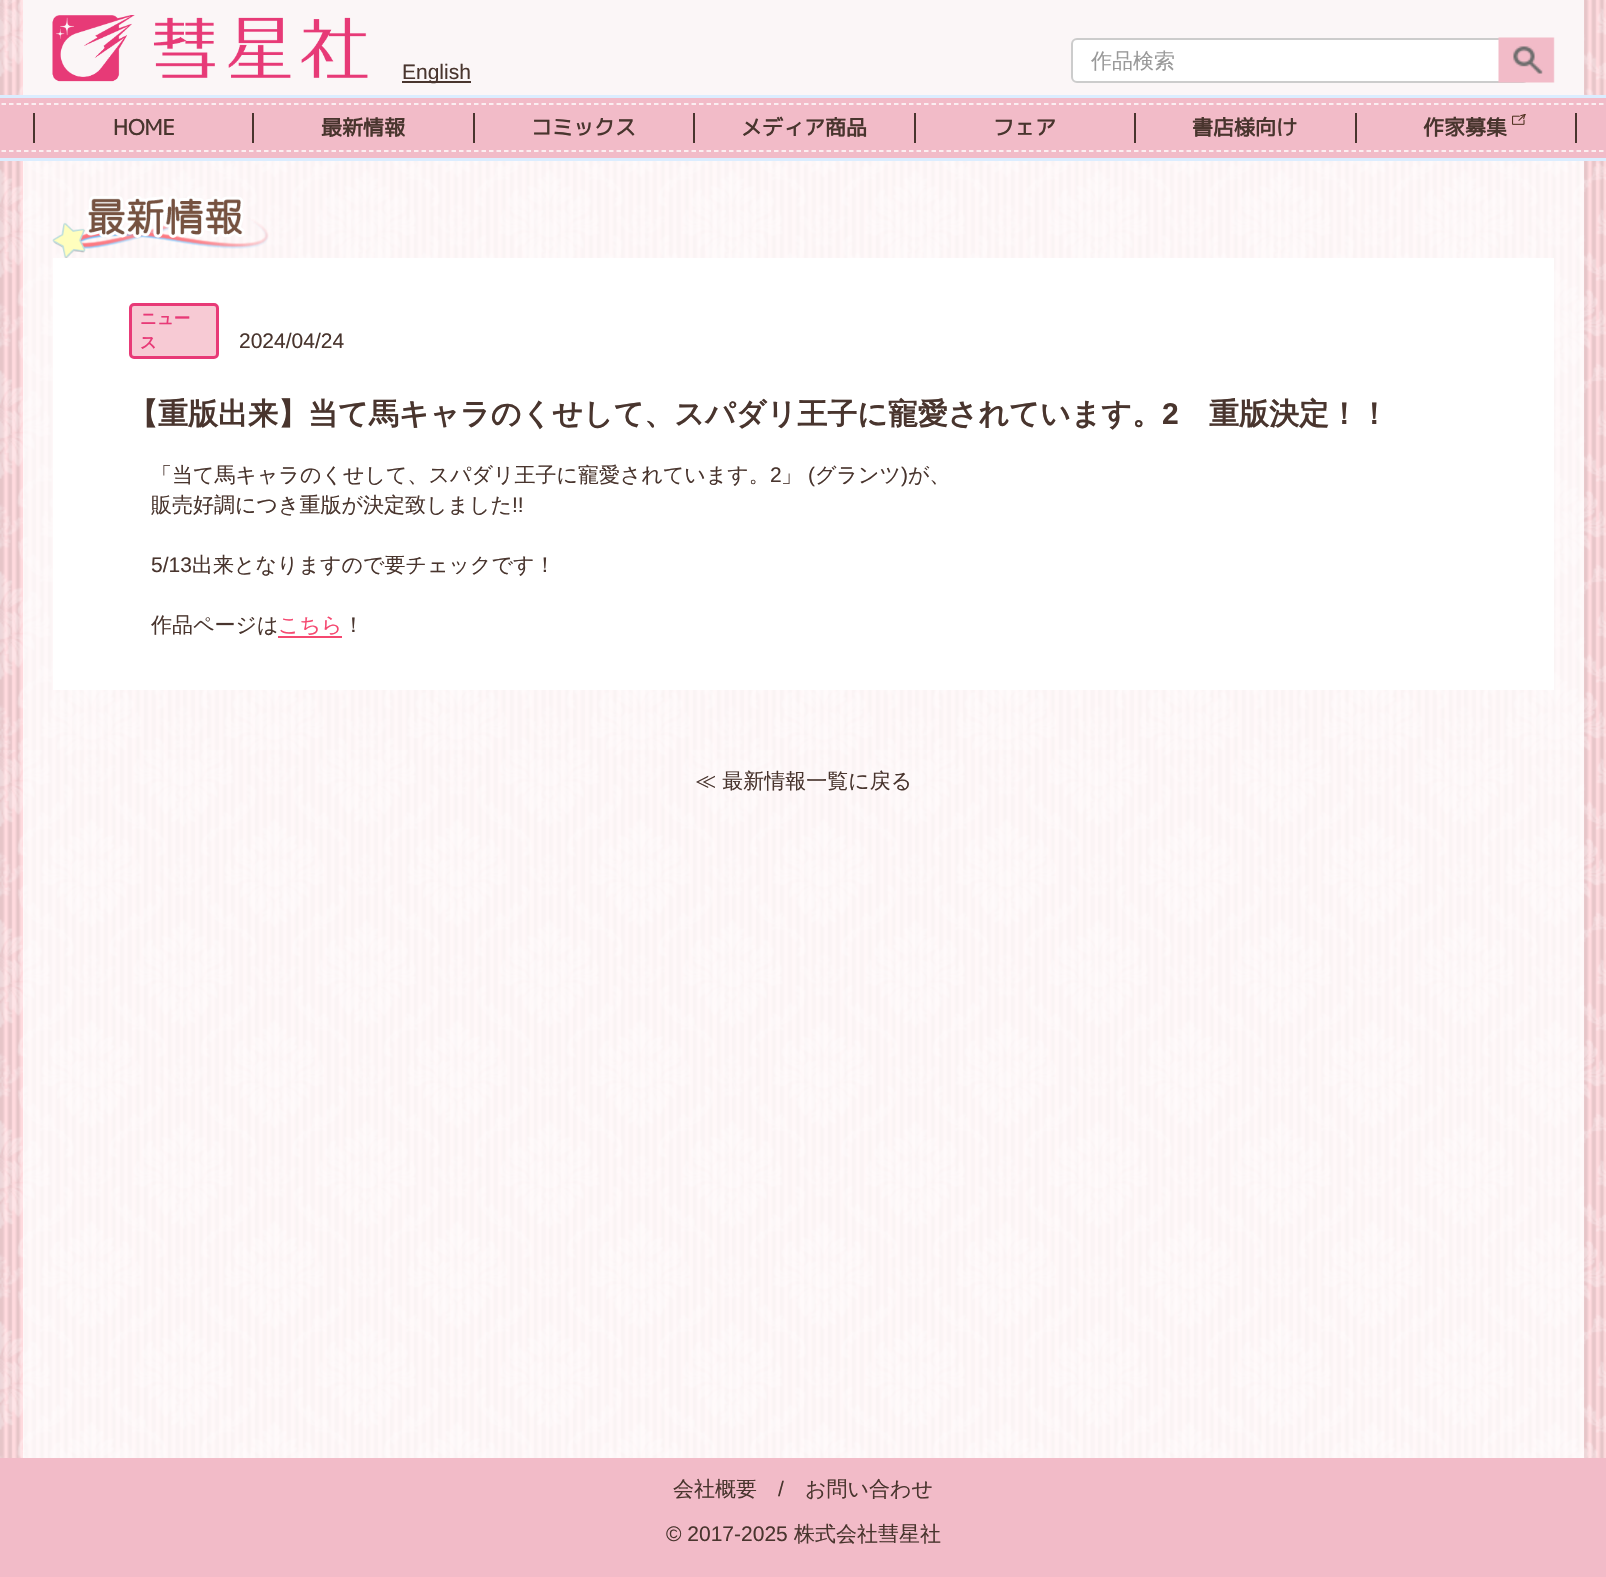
void draw(SkCanvas* canvas) {
  SkPaint paint;
  paint.setAntiAlias(true);
  auto face = [&](const char* family, int weight, float size, bool italic = false) {
    SkFontStyle style(weight, SkFontStyle::kNormal_Width,
      italic ? SkFontStyle::kItalic_Slant : SkFontStyle::kUpright_Slant);
    SkFont result(fontMgr->matchFamilyStyle(family, style), size);
    result.setSubpixel(true);
    return result;
  };
  auto paste = [&](const char* path, float x, float y, float w, float h) {
    auto image = SkImages::DeferredFromEncodedData(SkData::MakeFromFileName(path));
    canvas->drawImageRect(image, SkRect::MakeXYWH(x, y, w, h), SkSamplingOptions());
  };
  auto shape = [&](const char* data, bool evenOdd = false) {
    SkPath result = *SkParsePath::FromSVGString(data);
    if (evenOdd) result.setFillType(SkPathFillType::kEvenOdd);
    return result;
  };
  canvas->clear(0xffffffff);
  paste("img/1.png", 0, 0, 1606, 1458);
  paint.setColor(0xccffffff);
  canvas->drawRect(SkRect::MakeXYWH(23, 161, 1561, 1297), paint);
  paint.setColor(0xfffbf6f7);
  canvas->drawRect(SkRect::MakeXYWH(23, 0, 1561, 95), paint);
  paste("img/2.png", 52, 15, 316, 67);
  paint.setColor(0xffffffff);
  canvas->drawRoundRect(SkRect::MakeXYWH(1072, 39, 456, 43), 5, 5, paint);
  paint.setStroke(true);
  paint.setStrokeWidth(2);
  paint.setColor(0xffcccccc);
  canvas->drawRoundRect(SkRect::MakeXYWH(1072, 39, 456, 43), 5, 5, paint);
  paste("img/3.png", 1498, 37, 57, 46);
  paint.setStroke(false);
  paint.setColor(0xff49352e);
  canvas->drawRect(SkRect::MakeXYWH(402, 81, 69, 2), paint);
  paint.setStroke(true);
  paint.setStrokeWidth(9);
  paint.setColor(0xffdbedff);
  canvas->drawRect(SkRect::MakeXYWH(-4.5f, 99.5f, 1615, 57), paint);
  paint.setStrokeWidth(6);
  paint.setColor(0xfff2bbc8);
  canvas->drawRect(SkRect::MakeXYWH(-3, 101, 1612, 54), paint);
  paint.setStroke(false);
  canvas->drawRect(SkRect::MakeXYWH(0, 104, 1606, 48), paint);
  paint.setStroke(true);
  paint.setStrokeWidth(1.5f);
  paint.setColor(0xffffffff);
  paint.setPathEffect(SkDashPathEffect::Make({{4.5f, 3}}, 0));
  canvas->drawPath(shape("M-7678.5 104H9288"), paint);
  paint.setPathEffect(nullptr);
  paint.setPathEffect(SkDashPathEffect::Make({{4.5f, 3}}, 0));
  canvas->drawPath(shape("M-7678.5 151H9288"), paint);
  paint.setPathEffect(nullptr);
  paint.setStroke(false);
  {
    const struct { float x, y, w, h; SkColor color; } items[] = {
      {252, 113, 2, 30, 0xff49352e},
      {33, 113, 2, 30, 0xff49352e},
      {473, 113, 2, 30, 0xff49352e},
      {693, 113, 2, 30, 0xff49352e},
      {914, 113, 2, 30, 0xff49352e},
      {1134, 113, 2, 30, 0xff49352e},
      {1355, 113, 2, 30, 0xff49352e},
      {1575, 113, 2, 30, 0xff49352e},
    };
    for (auto [x, y, w, h, color] : items) {
      paint.setColor(color);
      canvas->drawRect(SkRect::MakeXYWH(x, y, w, h), paint);
    }
  }
  paste("img/4.png", 1512, 114, 14, 11);
  paste("img/5.png", 52, 196, 217, 62);
  paint.setColor(0xffffffff);
  canvas->drawRect(SkRect::MakeXYWH(53, 258, 1501, 432), paint);
  paint.setColor(0xfff7cad4);
  canvas->drawRoundRect(SkRect::MakeXYWH(130.5f, 304.5f, 87, 53), 3.5f, 3.5f, paint);
  paint.setStroke(true);
  paint.setStrokeWidth(3);
  paint.setColor(0xffe83a77);
  canvas->drawRoundRect(SkRect::MakeXYWH(130.5f, 304.5f, 87, 53), 3.5f, 3.5f, paint);
  paint.setStroke(false);
  paint.setColor(0xfff54870);
  canvas->drawRect(SkRect::MakeXYWH(278, 636, 64, 2), paint);
  paint.setColor(0xfff2bbc8);
  canvas->drawRect(SkRect::MakeXYWH(0, 1458, 1606, 119), paint);
  auto f0 = face("WenQuanYi Zen Hei", 500, 21);
  paint.setColor(0xff999999);
  canvas->drawString("作品検索", 1091, 68, f0, paint);
  auto f1 = face("Liberation Sans", 400, 21);
  paint.setColor(0xff49352e);
  canvas->drawString("English", 402, 79, f1, paint);
  auto f2 = face("M PLUS 1p", 700, 21);
  {
    const struct { const char* s; float x, y; } items[] = {
      {"HOME", 113, 135},
      {"最新情報", 321, 135},
      {"コミックス", 531, 135},
      {"メディア商品", 741, 135},
      {"フェア", 993, 135},
      {"書店様向け", 1192, 135},
      {"作家募集", 1423, 135},
    };
    for (auto [s, x, y] : items) {
      canvas->drawString(s, x, y, f2, paint);
    }
  }
  auto f3 = face("WenQuanYi Zen Hei", 700, 16.5f);
  paint.setColor(0xffe83a77);
  canvas->drawString("ニュー", 140, 324, f3, paint);
  canvas->drawString("ス", 140, 348, f3, paint);
  paint.setColor(0xff49352e);
  canvas->drawString("2024/04/24", 239, 348, f1, paint);
  auto f4 = face("WenQuanYi Zen Hei", 700, 30);
  canvas->drawString("【重版出来】当て馬キャラのくせして、スパダリ王子に寵愛されています。", 128, 424, f4, paint);
  auto f5 = face("Liberation Sans", 700, 30);
  canvas->drawString("2", 1162, 424, f5, paint);
  canvas->drawString("重版決定！！", 1209, 424, f4, paint);
  canvas->drawString("「当て馬キャラのくせして、スパダリ王子に寵愛されています。", 151, 482, f0, paint);
  canvas->drawString("2", 770, 482, f1, paint);
  canvas->drawString("」", 781, 482, f0, paint);
  canvas->drawString("(", 808, 482, f1, paint);
  canvas->drawString("グランツ", 815, 482, f0, paint);
  canvas->drawString(")", 901, 482, f1, paint);
  canvas->drawString("が、", 908, 482, f0, paint);
  canvas->drawString("販売好調につき重版が決定致しました", 151, 512, f0, paint);
  canvas->drawString("!!", 512, 512, f1, paint);
  canvas->drawString("5/13", 151, 572, f1, paint);
  canvas->drawString("出来となりますので要チェックです！", 192, 572, f0, paint);
  canvas->drawString("作品ページは", 151, 632, f0, paint);
  paint.setColor(0xfff54870);
  canvas->drawString("こちら", 278, 632, f0, paint);
  paint.setColor(0xff49352e);
  {
    const struct { const char* s; float x, y; } items[] = {
      {"！", 343, 632},
      {"≪ 最新情報一覧に戻る", 695, 788},
      {"会社概要", 673, 1496},
    };
    for (auto [s, x, y] : items) {
      canvas->drawString(s, x, y, f0, paint);
    }
  }
  canvas->drawString("/", 778, 1496, f1, paint);
  canvas->drawString("お問い合わせ", 805, 1496, f0, paint);
  canvas->drawString("© 2017-2025", 666, 1541, f1, paint);
  canvas->drawString("株式会社彗星社", 794, 1541, f0, paint);
}
